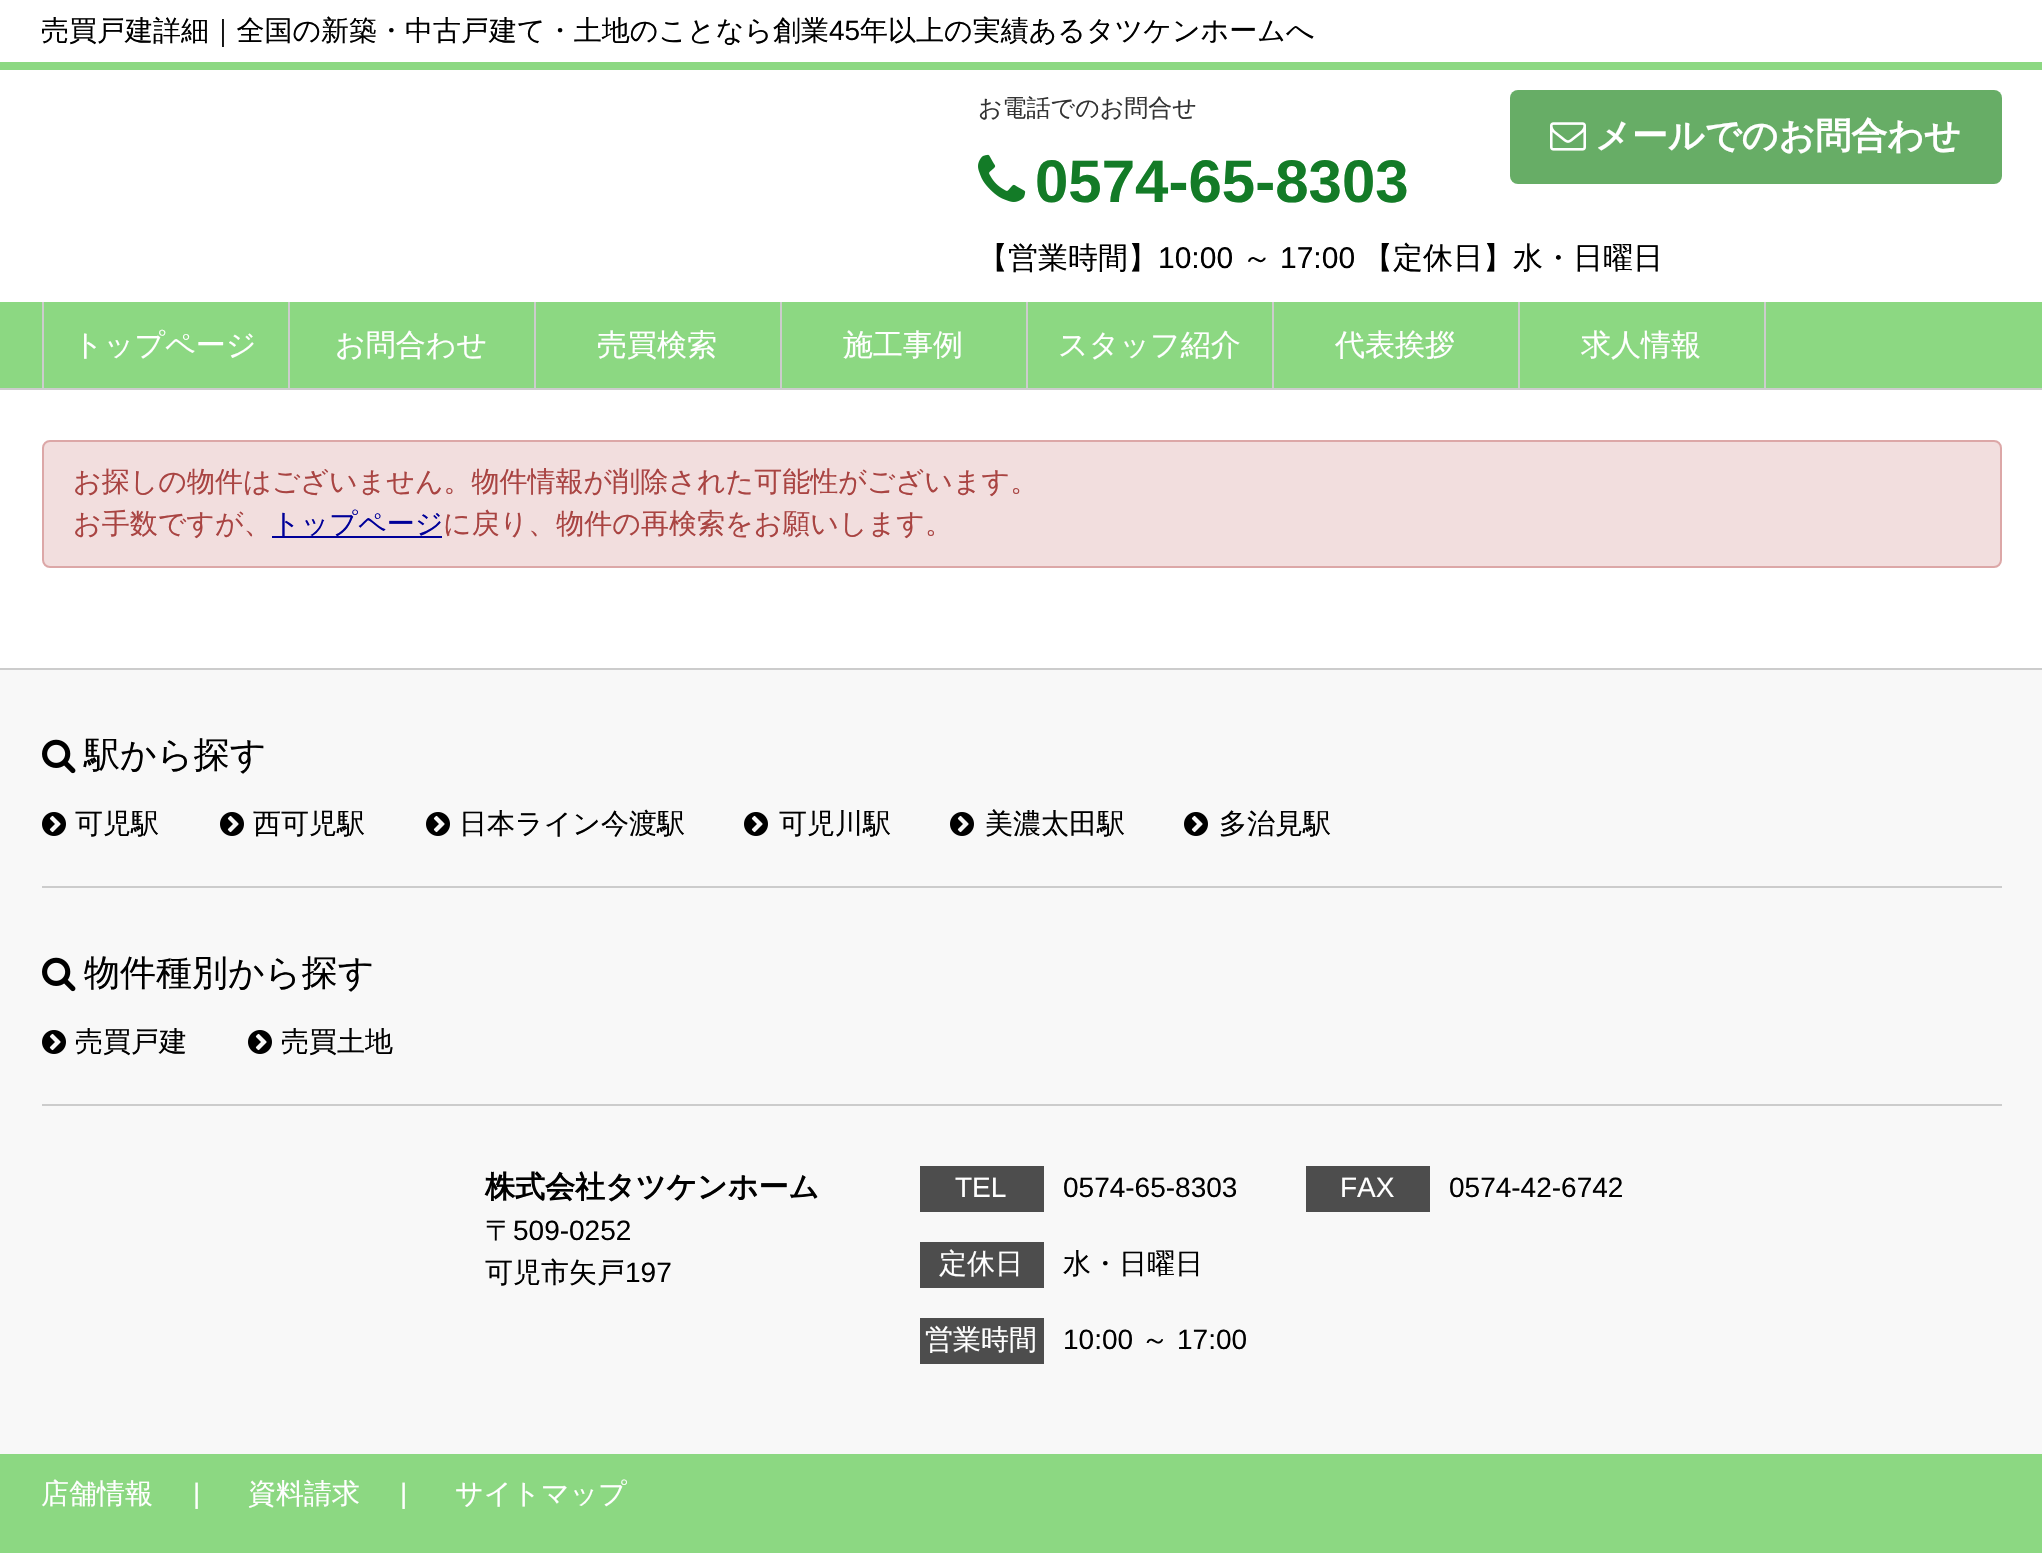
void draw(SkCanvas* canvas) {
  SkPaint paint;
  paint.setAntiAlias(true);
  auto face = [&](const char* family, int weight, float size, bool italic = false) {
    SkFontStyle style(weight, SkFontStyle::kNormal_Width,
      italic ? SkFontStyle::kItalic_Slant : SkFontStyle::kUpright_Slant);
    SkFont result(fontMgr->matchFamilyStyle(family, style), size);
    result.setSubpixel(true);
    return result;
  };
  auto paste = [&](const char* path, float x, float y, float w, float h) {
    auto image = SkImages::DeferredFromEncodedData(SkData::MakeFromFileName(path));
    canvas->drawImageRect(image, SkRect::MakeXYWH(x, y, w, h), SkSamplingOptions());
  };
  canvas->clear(0xffffffff);
  paint.setColor(0xff8cd882);
  canvas->drawRect(SkRect::MakeXYWH(0, 62, 2042, 8), paint);
  paste("img/1.png", 978, 154, 48, 48);
  paint.setColor(0xff67ad66);
  canvas->drawRoundRect(SkRect::MakeXYWH(1510, 90, 492, 94), 8, 8, paint);
  paste("img/2.png", 1550, 122, 36, 29);
  {
    const struct { float x, y, w, h; SkColor color; } items[] = {
      {0, 302, 2042, 86, 0xff8cd882},
      {0, 388, 2042, 2, 0xffcccccc},
      {288, 302, 2, 86, 0xffcccccc},
      {42, 302, 2, 86, 0xffcccccc},
      {534, 302, 2, 86, 0xffcccccc},
      {780, 302, 2, 86, 0xffcccccc},
      {1026, 302, 2, 86, 0xffcccccc},
      {1272, 302, 2, 86, 0xffcccccc},
      {1518, 302, 2, 86, 0xffcccccc},
      {1764, 302, 2, 86, 0xffcccccc},
    };
    for (auto [x, y, w, h, color] : items) {
      paint.setColor(color);
      canvas->drawRect(SkRect::MakeXYWH(x, y, w, h), paint);
    }
  }
  paint.setColor(0xfff2dede);
  canvas->drawRoundRect(SkRect::MakeXYWH(43, 441, 1958, 126), 7, 7, paint);
  paint.setStroke(true);
  paint.setStrokeWidth(2);
  paint.setColor(0xffdca7a7);
  canvas->drawRoundRect(SkRect::MakeXYWH(43, 441, 1958, 126), 7, 7, paint);
  paint.setStroke(false);
  {
    const struct { float x, y, w, h; SkColor color; } items[] = {
      {272, 536, 170, 2, 0xff000099},
      {0, 670, 2042, 784, 0xfff8f8f8},
      {0, 668, 2042, 2, 0xffcccccc},
      {42, 886, 1960, 2, 0xffcccccc},
    };
    for (auto [x, y, w, h, color] : items) {
      paint.setColor(color);
      canvas->drawRect(SkRect::MakeXYWH(x, y, w, h), paint);
    }
  }
  paste("img/3.png", 42, 739, 34, 35);
  paste("img/4.png", 42, 812, 24, 24);
  paste("img/4.png", 220, 812, 24, 24);
  paste("img/4.png", 426, 812, 24, 24);
  paste("img/4.png", 744, 812, 24, 24);
  paste("img/4.png", 950, 812, 24, 24);
  paste("img/4.png", 1184, 812, 24, 24);
  canvas->drawRect(SkRect::MakeXYWH(42, 1104, 1960, 2), paint);
  paste("img/3.png", 42, 957, 34, 35);
  paste("img/4.png", 42, 1030, 24, 24);
  paste("img/4.png", 248, 1030, 24, 24);
  {
    const struct { float x, y, w, h; SkColor color; } items[] = {
      {920, 1166, 124, 46, 0xff4d4d4d},
      {1306, 1166, 124, 46, 0xff4d4d4d},
      {920, 1242, 124, 46, 0xff4d4d4d},
      {920, 1318, 124, 46, 0xff4d4d4d},
      {0, 1454, 2042, 99, 0xff8cd882},
    };
    for (auto [x, y, w, h, color] : items) {
      paint.setColor(color);
      canvas->drawRect(SkRect::MakeXYWH(x, y, w, h), paint);
    }
  }
  auto f0 = face("WenQuanYi Zen Hei", 500, 28);
  paint.setColor(0xff000000);
  canvas->drawString("売買戸建詳細｜全国の新築・中古戸建て・土地のことなら創業", 41, 40, f0, paint);
  auto f1 = face("Liberation Sans", 400, 28);
  canvas->drawString("45", 829, 40, f1, paint);
  canvas->drawString("年以上の実績あるタツケンホームへ", 860, 40, f0, paint);
  auto f2 = face("WenQuanYi Zen Hei", 500, 24);
  paint.setColor(0xff333333);
  canvas->drawString("お電話でのお問合せ", 978, 116, f2, paint);
  auto f3 = face("Liberation Sans", 700, 60);
  paint.setColor(0xff137b27);
  canvas->drawString("0574-65-8303", 1035, 202, f3, paint);
  auto f4 = face("WenQuanYi Zen Hei", 700, 36);
  paint.setColor(0xffffffff);
  canvas->drawString("メールでのお問合わせ", 1595, 148, f4, paint);
  auto f5 = face("WenQuanYi Zen Hei", 500, 30);
  paint.setColor(0xff000000);
  canvas->drawString("【営業時間】", 978, 268, f5, paint);
  auto f6 = face("Liberation Sans", 400, 30);
  canvas->drawString("10:00", 1158, 268, f6, paint);
  canvas->drawString("～", 1242, 268, f5, paint);
  canvas->drawString("17:00", 1280, 268, f6, paint);
  canvas->drawString("【定休日】水・日曜日", 1363, 268, f5, paint);
  paint.setColor(0xffffffff);
  {
    const struct { const char* s; float x, y; } items[] = {
      {"トップページ", 73, 355},
      {"お問合わせ", 335, 355},
      {"売買検索", 597, 355},
      {"施工事例", 843, 355},
      {"スタッフ紹介", 1058, 355},
      {"代表挨拶", 1335, 355},
      {"求人情報", 1581, 355},
    };
    for (auto [s, x, y] : items) {
      canvas->drawString(s, x, y, f5, paint);
    }
  }
  paint.setColor(0xffa94442);
  canvas->drawString("お探しの物件はございません。物件情報が削除された可能性がございます。", 73, 491, f0, paint);
  canvas->drawString("お手数ですが、", 73, 533, f0, paint);
  paint.setColor(0xff000099);
  canvas->drawString("トップページ", 272, 533, f0, paint);
  paint.setColor(0xffa94442);
  canvas->drawString("に戻り、物件の再検索をお願いします。", 443, 533, f0, paint);
  auto f7 = face("WenQuanYi Zen Hei", 500, 36);
  paint.setColor(0xff000000);
  canvas->drawString("駅から探す", 84, 767, f7, paint);
  {
    const struct { const char* s; float x, y; } items[] = {
      {"可児駅", 75, 833},
      {"西可児駅", 253, 833},
      {"日本ライン今渡駅", 459, 833},
      {"可児川駅", 779, 833},
      {"美濃太田駅", 985, 833},
      {"多治見駅", 1219, 833},
    };
    for (auto [s, x, y] : items) {
      canvas->drawString(s, x, y, f0, paint);
    }
  }
  canvas->drawString("物件種別から探す", 84, 985, f7, paint);
  canvas->drawString("売買戸建", 75, 1051, f0, paint);
  canvas->drawString("売買土地", 281, 1051, f0, paint);
  auto f8 = face("WenQuanYi Zen Hei", 700, 30);
  canvas->drawString("株式会社タツケンホーム", 485, 1197, f8, paint);
  canvas->drawString("〒", 485, 1240, f0, paint);
  canvas->drawString("509-0252", 513, 1240, f1, paint);
  canvas->drawString("可児市矢戸", 485, 1282, f0, paint);
  canvas->drawString("197", 625, 1282, f1, paint);
  paint.setColor(0xffffffff);
  canvas->drawString("TEL", 955, 1197, f1, paint);
  paint.setColor(0xff000000);
  canvas->drawString("0574-65-8303", 1063, 1197, f1, paint);
  paint.setColor(0xffffffff);
  canvas->drawString("FAX", 1340, 1197, f1, paint);
  paint.setColor(0xff000000);
  canvas->drawString("0574-42-6742", 1449, 1197, f1, paint);
  paint.setColor(0xffffffff);
  canvas->drawString("定休日", 939, 1273, f0, paint);
  paint.setColor(0xff000000);
  canvas->drawString("水・日曜日", 1063, 1273, f0, paint);
  paint.setColor(0xffffffff);
  canvas->drawString("営業時間", 925, 1349, f0, paint);
  paint.setColor(0xff000000);
  canvas->drawString("10:00", 1063, 1349, f1, paint);
  canvas->drawString("～", 1141, 1349, f0, paint);
  canvas->drawString("17:00", 1177, 1349, f1, paint);
  paint.setColor(0xffffffff);
  canvas->drawString("店舗情報", 41, 1503, f0, paint);
  canvas->drawString("|", 193, 1503, f1, paint);
  canvas->drawString("資料請求", 248, 1503, f0, paint);
  canvas->drawString("|", 400, 1503, f1, paint);
  canvas->drawString("サイトマップ", 455, 1503, f0, paint);
}
